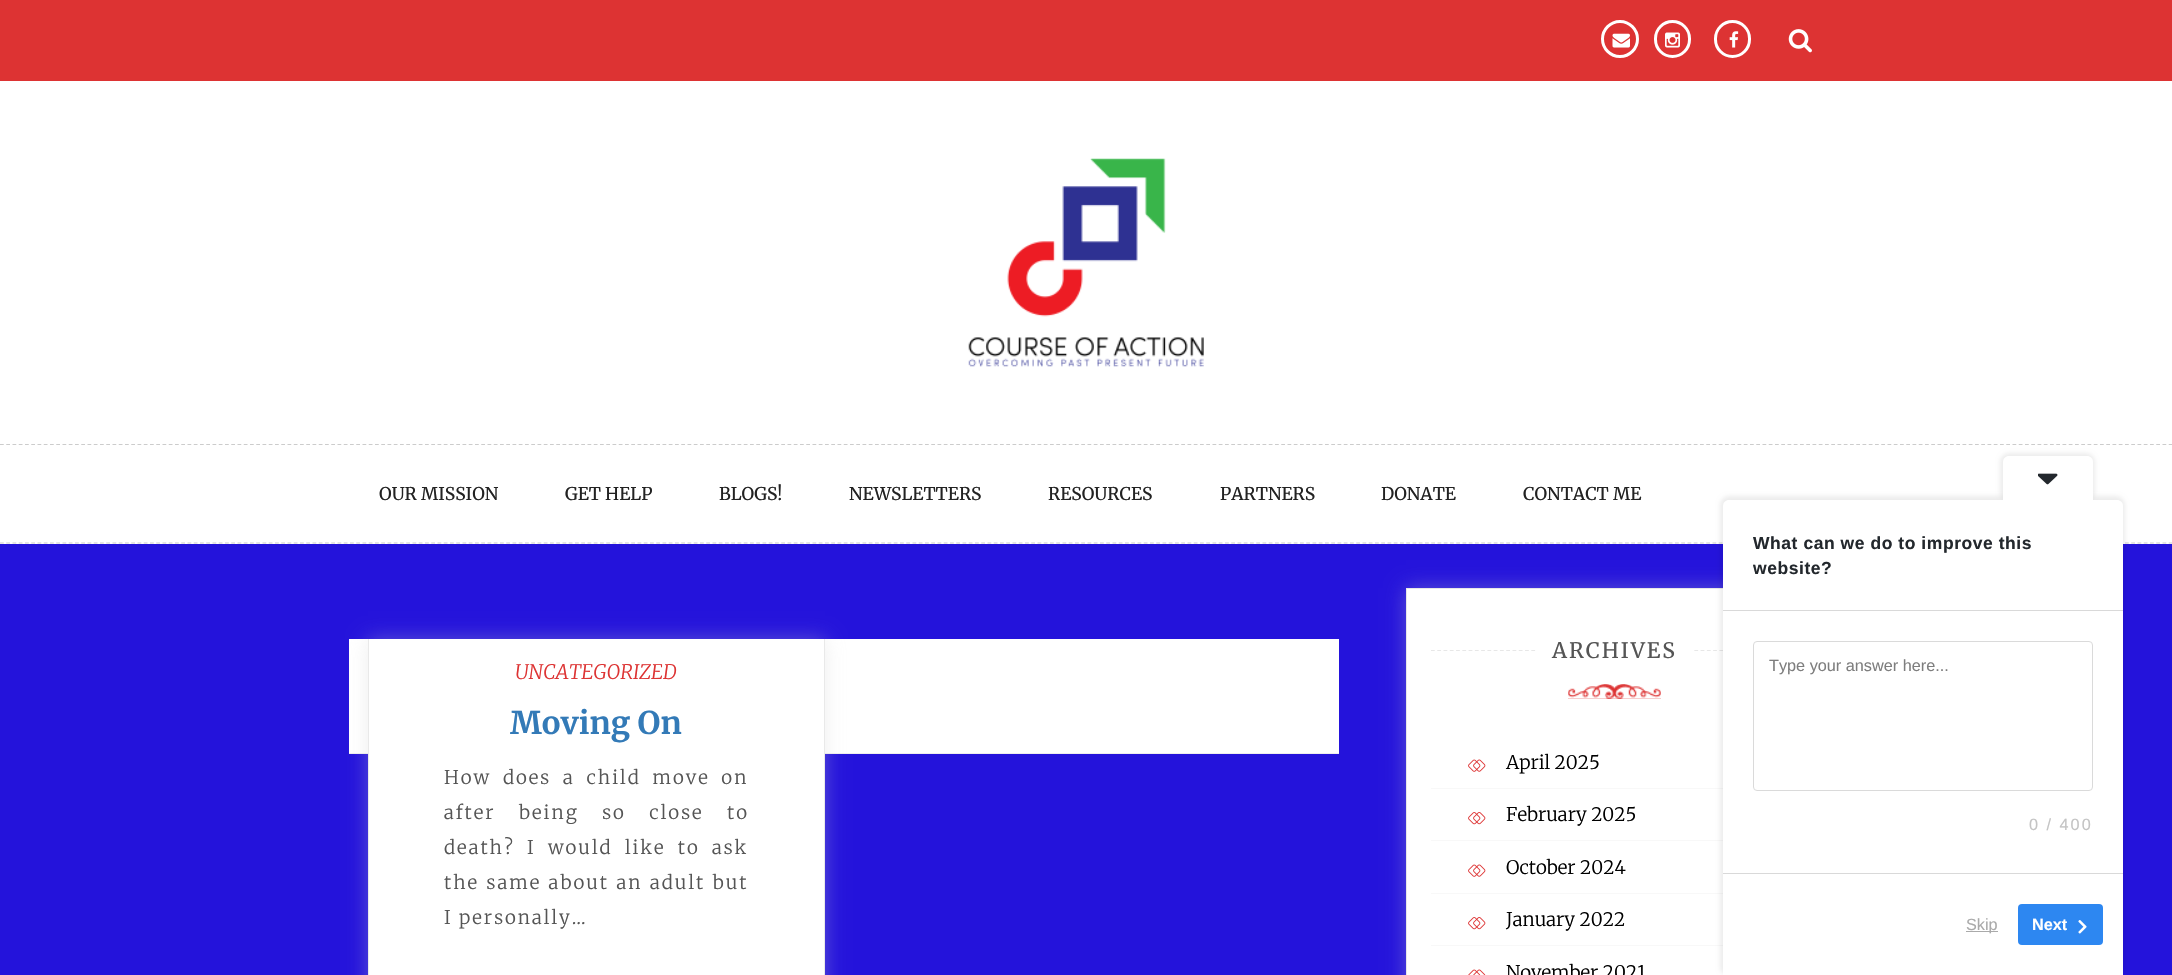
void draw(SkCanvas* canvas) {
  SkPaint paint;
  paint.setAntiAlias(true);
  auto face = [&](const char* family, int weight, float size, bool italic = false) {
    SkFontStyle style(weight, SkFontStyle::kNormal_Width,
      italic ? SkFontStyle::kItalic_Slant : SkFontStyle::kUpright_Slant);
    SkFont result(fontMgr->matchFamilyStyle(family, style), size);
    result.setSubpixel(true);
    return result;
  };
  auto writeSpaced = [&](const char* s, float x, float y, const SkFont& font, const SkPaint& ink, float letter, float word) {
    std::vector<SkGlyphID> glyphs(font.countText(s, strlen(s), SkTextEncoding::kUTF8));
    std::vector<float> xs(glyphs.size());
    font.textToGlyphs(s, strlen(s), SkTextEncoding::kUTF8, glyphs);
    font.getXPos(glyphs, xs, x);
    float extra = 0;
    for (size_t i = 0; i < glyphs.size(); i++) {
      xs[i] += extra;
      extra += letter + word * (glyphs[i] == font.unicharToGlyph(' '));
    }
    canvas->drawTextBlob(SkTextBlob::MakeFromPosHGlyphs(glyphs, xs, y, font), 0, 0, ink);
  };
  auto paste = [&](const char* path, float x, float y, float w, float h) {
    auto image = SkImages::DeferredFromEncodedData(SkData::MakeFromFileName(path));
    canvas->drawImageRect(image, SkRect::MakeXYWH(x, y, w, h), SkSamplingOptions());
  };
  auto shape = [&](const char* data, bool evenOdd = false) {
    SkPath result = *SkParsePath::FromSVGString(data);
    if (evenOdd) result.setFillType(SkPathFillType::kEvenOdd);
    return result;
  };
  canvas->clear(0xff2413db);
  paint.setColor(0xffffffff);
  canvas->drawRect(SkRect::MakeXYWH(0, 81, 2172, 463), paint);
  paint.setColor(0xffdd3333);
  canvas->drawRect(SkRect::MakeXYWH(0, 0, 2172, 81), paint);
  paint.setStroke(true);
  paint.setStrokeWidth(3);
  paint.setColor(0xffffffff);
  canvas->drawCircle(1620, 39, 17.5f, paint);
  paste("img/1.png", 1612, 33, 18, 15);
  canvas->drawRoundRect(SkRect::MakeXYWH(1655.5f, 21.5f, 34, 35), 17, 17, paint);
  paste("img/2.png", 1665, 32, 15, 16);
  canvas->drawRoundRect(SkRect::MakeXYWH(1715.5f, 21.5f, 34, 35), 17, 17, paint);
  paste("img/3.png", 1729, 31, 10, 17);
  paste("img/4.png", 1788, 29, 24, 24);
  paste("img/5.png", 968, 158, 236, 209);
  paint.setStrokeWidth(1.2f);
  paint.setColor(0xffcccccc);
  paint.setPathEffect(SkDashPathEffect::Make({{3.75f, 2.5f}}, 0));
  canvas->drawPath(shape("M0 444.5H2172.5"), paint);
  paint.setPathEffect(nullptr);
  paint.setPathEffect(SkDashPathEffect::Make({{3.75f, 2.5f}}, 0));
  canvas->drawPath(shape("M0 543H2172.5"), paint);
  paint.setPathEffect(nullptr);
  paint.setStroke(false);
  paint.setColor(0xffffffff);
  canvas->drawRect(SkRect::MakeXYWH(349, 639, 990, 114), paint);
  paint.setColor(0xffeeeeee);
  canvas->drawRect(SkRect::MakeXYWH(349, 753, 990, 1), paint);
  paint.setColor(0x57cccccc);
  paint.setMaskFilter(SkMaskFilter::MakeBlur(kNormal_SkBlurStyle, 9.5f));
  canvas->drawRect(SkRect::MakeXYWH(368, 639, 457, 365), paint);
  paint.setMaskFilter(nullptr);
  {
    const struct { float x, y, w, h; SkColor color; } items[] = {
      {369, 639, 455, 336, 0xffffffff},
      {824, 639, 1, 336, 0xffe9e9e9},
      {368, 639, 1, 336, 0xffe9e9e9},
    };
    for (auto [x, y, w, h, color] : items) {
      paint.setColor(color);
      canvas->drawRect(SkRect::MakeXYWH(x, y, w, h), paint);
    }
  }
  paint.setColor(0x57cccccc);
  paint.setMaskFilter(SkMaskFilter::MakeBlur(kNormal_SkBlurStyle, 9.5f));
  canvas->drawRect(SkRect::MakeXYWH(1406, 588, 418, 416), paint);
  paint.setMaskFilter(nullptr);
  paint.setColor(0xffffffff);
  canvas->drawRect(SkRect::MakeXYWH(1407, 589, 316, 386), paint);
  paint.setStroke(true);
  paint.setStrokeWidth(1);
  paint.setColor(0xffe7e7e7);
  canvas->drawRect(SkRect::MakeXYWH(1406.5f, 588.5f, 417, 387), paint);
  paint.setStrokeWidth(1.2f);
  paint.setPathEffect(SkDashPathEffect::Make({{3.75f, 2.52f}}, 0));
  canvas->drawPath(shape("M1431 650.5H1799"), paint);
  paint.setPathEffect(nullptr);
  paint.setStroke(false);
  paint.setColor(0xffffffff);
  canvas->drawRect(SkRect::MakeXYWH(1537, 650, 155, 1), paint);
  paint.setColor(0xffdd3333);
  canvas->drawRect(SkRect::MakeXYWH(1568, 684, 93, 15), paint);
  paste("img/6.png", 1568, 684, 93, 15);
  paint.setColor(0xfff8f8f8);
  canvas->drawRect(SkRect::MakeXYWH(1431, 788, 292, 1), paint);
  paste("img/7.png", 1468, 759, 13, 13);
  paste("img/8.png", 1473, 759, 13, 13);
  canvas->drawRect(SkRect::MakeXYWH(1431, 840, 292, 1), paint);
  paste("img/9.png", 1468, 812, 13, 13);
  paste("img/10.png", 1473, 812, 13, 13);
  canvas->drawRect(SkRect::MakeXYWH(1431, 893, 292, 1), paint);
  paste("img/7.png", 1468, 864, 13, 13);
  paste("img/8.png", 1473, 864, 13, 13);
  canvas->drawRect(SkRect::MakeXYWH(1431, 945, 292, 1), paint);
  paste("img/9.png", 1468, 917, 13, 13);
  paste("img/10.png", 1473, 917, 13, 13);
  paste("img/11.png", 1468, 969, 13, 6);
  paste("img/12.png", 1473, 969, 13, 6);
  paint.setColor(0x12000000);
  paint.setMaskFilter(SkMaskFilter::MakeBlur(kNormal_SkBlurStyle, 2));
  canvas->drawRoundRect(SkRect::MakeXYWH(1720, 496, 405, 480), 9, 9, paint);
  paint.setMaskFilter(nullptr);
  paint.setColor(0xffffffff);
  canvas->drawPath(shape("M1729 500H2117C2120.5 500 2123 502.5 2123 506V975H1723V506C1723 502.5 1725.5 500 1729 500Z"), paint);
  canvas->save();
  canvas->clipPath(shape("M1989 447.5H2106L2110.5 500H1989Z"), true);
  paint.setColor(0x12000000);
  paint.setMaskFilter(SkMaskFilter::MakeBlur(kNormal_SkBlurStyle, 2));
  canvas->drawRoundRect(SkRect::MakeXYWH(2000, 453, 95, 48), 9, 9, paint);
  paint.setMaskFilter(nullptr);
  canvas->restore();
  paint.setColor(0xffffffff);
  canvas->drawPath(shape("M2009 456H2087C2090.5 456 2093 458.5 2093 462V500H2003V462C2003 458.5 2005.5 456 2009 456Z"), paint);
  paste("img/13.png", 2038, 473, 20, 12);
  paint.setColor(0xffd9d9d9);
  canvas->drawRect(SkRect::MakeXYWH(1723, 610, 400, 1), paint);
  canvas->drawRect(SkRect::MakeXYWH(1723, 873, 400, 1), paint);
  paint.setStroke(true);
  paint.setStrokeWidth(1);
  paint.setColor(0xffdadada);
  canvas->drawRoundRect(SkRect::MakeXYWH(1753.5f, 641.5f, 339, 149), 3.5f, 3.5f, paint);
  paint.setStroke(false);
  paint.setColor(0xffaaaaaa);
  canvas->drawRect(SkRect::MakeXYWH(1966, 931, 32, 1), paint);
  paint.setColor(0xff2d87f1);
  canvas->drawRoundRect(SkRect::MakeXYWH(2018, 904, 85, 41), 4, 4, paint);
  paste("img/14.png", 2078, 920, 9, 14);
  auto f0 = face("Merriweather", 400, 17.5f);
  paint.setColor(0xff222222);
  {
    const struct { const char* s; float x, y; } items[] = {
      {"OUR MISSION", 379, 500},
      {"GET HELP", 565, 500},
      {"BLOGS!", 719, 500},
      {"NEWSLETTERS", 849, 500},
      {"RESOURCES", 1048, 500},
      {"PARTNERS", 1220, 500},
      {"DONATE", 1381, 500},
      {"CONTACT ME", 1523, 500},
    };
    for (auto [s, x, y] : items) {
      canvas->drawString(s, x, y, f0, paint);
    }
  }
  auto f1 = face("Merriweather", 300, 20, true);
  paint.setColor(0xffdd3333);
  canvas->drawString("UNCATEGORIZED", 515, 679, f1, paint);
  auto f2 = face("Merriweather", 700, 31.25f);
  paint.setColor(0xff337ab7);
  canvas->drawString("Moving On", 510, 734, f2, paint);
  auto f3 = face("Merriweather", 300, 18.75f);
  paint.setColor(0xff555555);
  writeSpaced("How does a child move on", 444, 784, f3, paint, 2, 5.25f);
  writeSpaced("after being so close to", 444, 819, f3, paint, 2, 17);
  writeSpaced("death? I would like to ask", 444, 854, f3, paint, 2, 5.75f);
  writeSpaced("the same about an adult but", 444, 889, f3, paint, 2, 1);
  writeSpaced("I personally…", 444, 924, f3, paint, 2, 0);
  auto f4 = face("Merriweather", 400, 21.25f);
  writeSpaced("ARCHIVES", 1552, 658, f4, paint, 2, 0);
  paint.setColor(0xff000000);
  {
    const struct { const char* s; float x, y; } items[] = {
      {"April 2025", 1506, 769},
      {"February 2025", 1506, 821},
      {"October 2024", 1506, 874},
      {"January 2022", 1506, 926},
      {"November 2021", 1506, 979},
    };
    for (auto [s, x, y] : items) {
      canvas->drawString(s, x, y, f3, paint);
    }
  }
  auto f5 = face("Liberation Sans", 700, 17.5f);
  paint.setColor(0xff23282d);
  writeSpaced("What can we do to improve this", 1753, 549, f5, paint, 0.55f, 0);
  writeSpaced("website?", 1753, 574, f5, paint, 0.55f, 0);
  auto f6 = face("Liberation Sans", 400, 16.25f);
  paint.setColor(0xff7e7e7e);
  canvas->drawString("Type your answer here...", 1769, 671, f6, paint);
  paint.setColor(0xffc4c4c4);
  writeSpaced("0 / 400", 2029, 830, f6, paint, 2, 0);
  paint.setColor(0xffaaaaaa);
  canvas->drawString("Skip", 1966, 930, f6, paint);
  auto f7 = face("Liberation Sans", 700, 16.25f);
  paint.setColor(0xffffffff);
  canvas->drawString("Next", 2032, 930, f7, paint);
}
